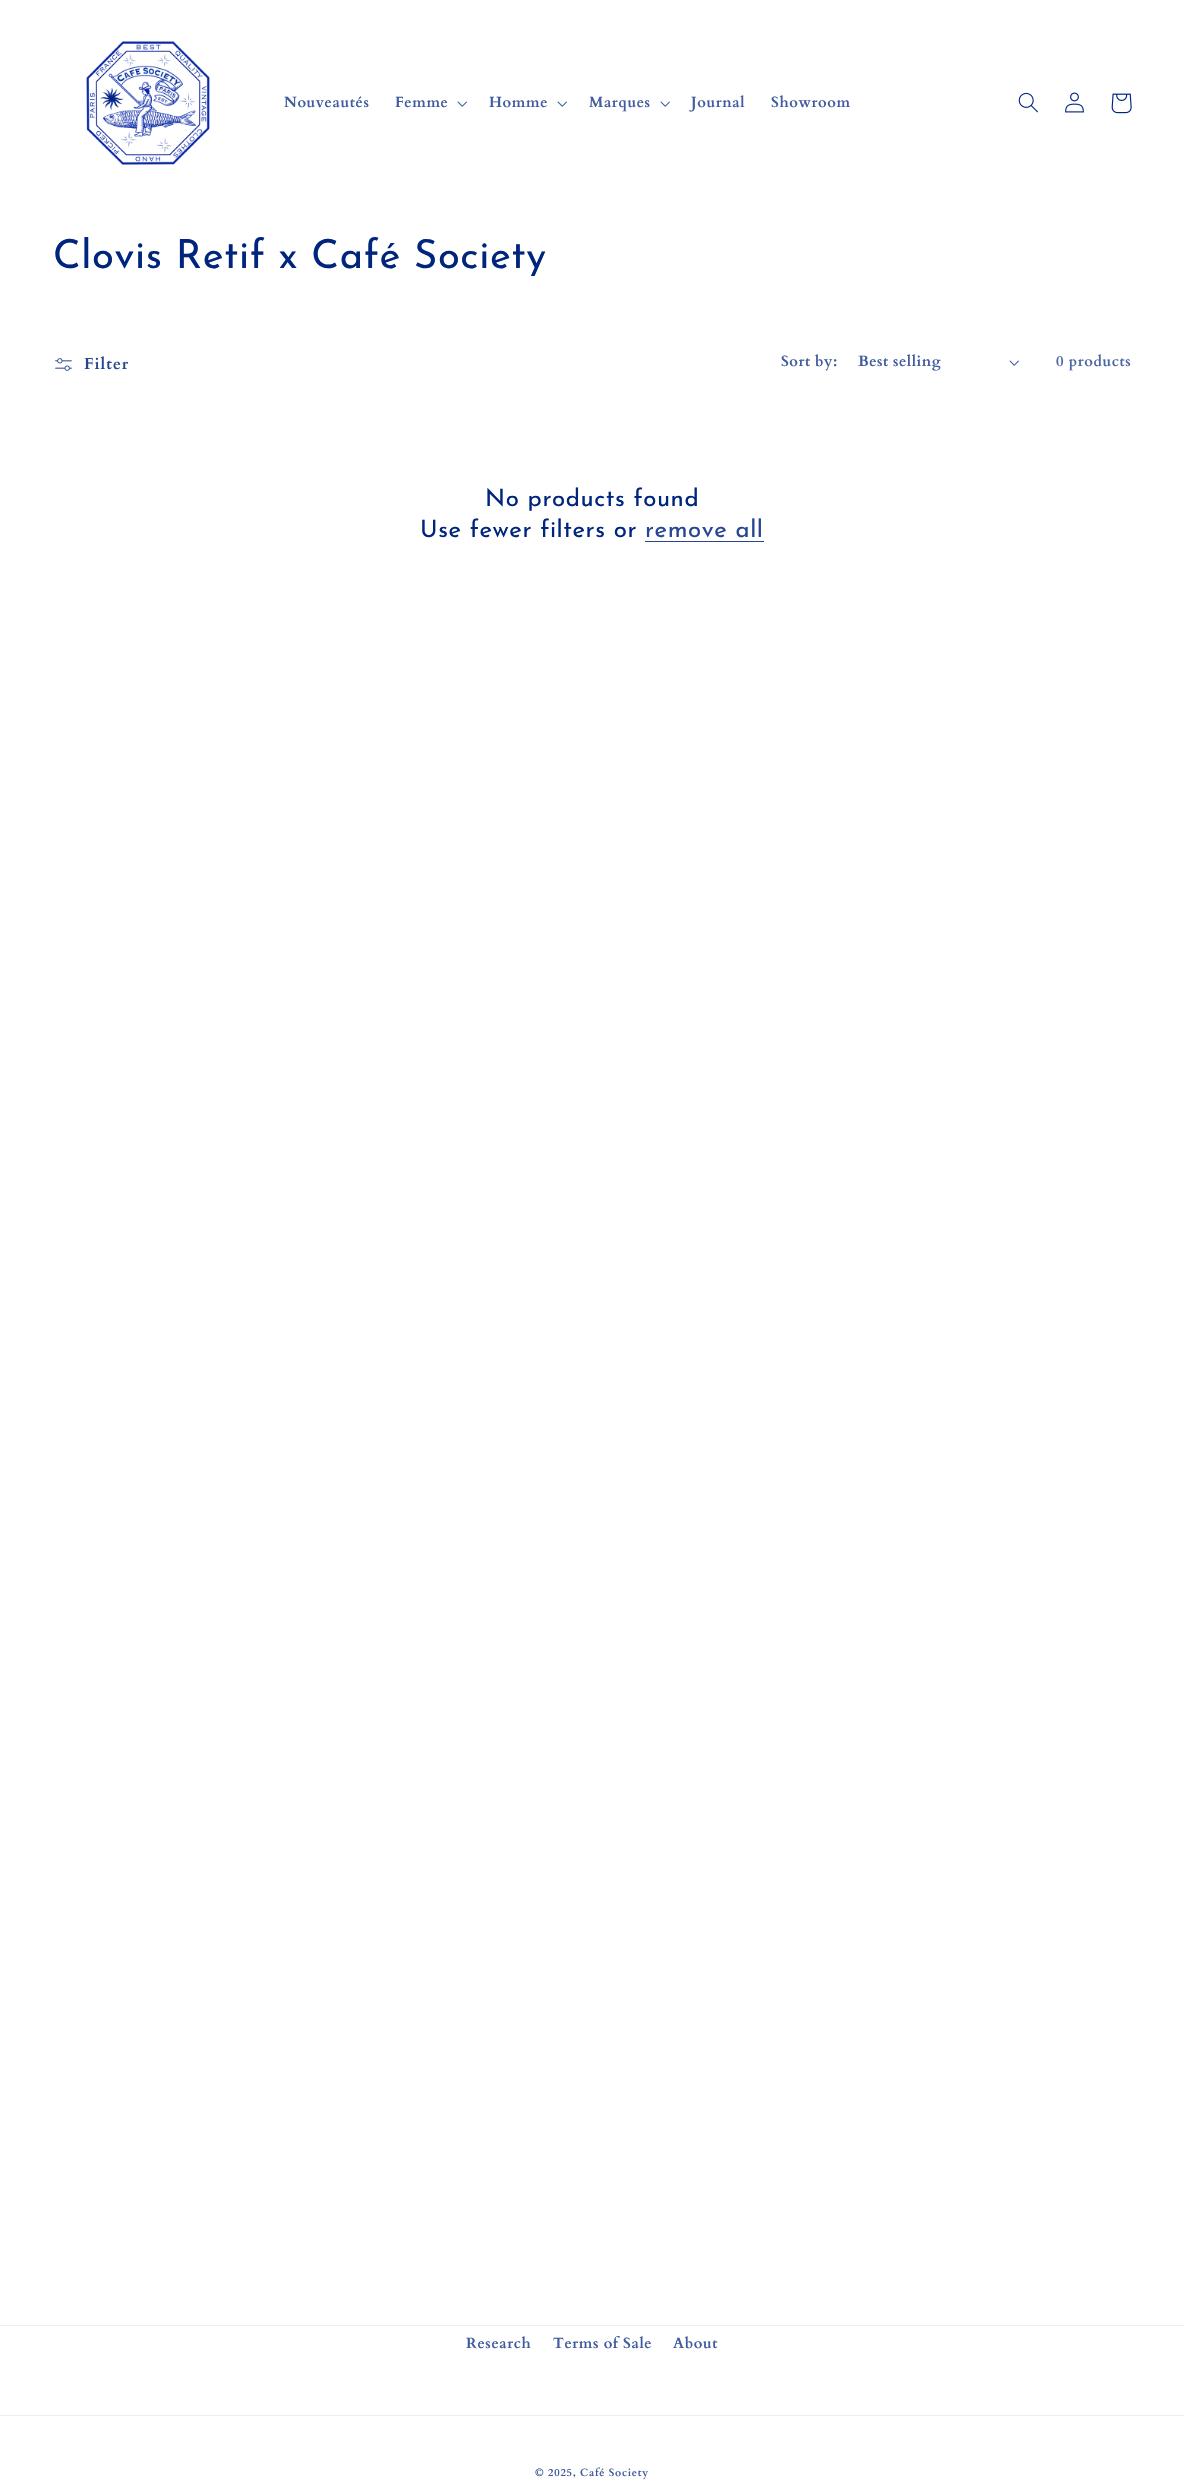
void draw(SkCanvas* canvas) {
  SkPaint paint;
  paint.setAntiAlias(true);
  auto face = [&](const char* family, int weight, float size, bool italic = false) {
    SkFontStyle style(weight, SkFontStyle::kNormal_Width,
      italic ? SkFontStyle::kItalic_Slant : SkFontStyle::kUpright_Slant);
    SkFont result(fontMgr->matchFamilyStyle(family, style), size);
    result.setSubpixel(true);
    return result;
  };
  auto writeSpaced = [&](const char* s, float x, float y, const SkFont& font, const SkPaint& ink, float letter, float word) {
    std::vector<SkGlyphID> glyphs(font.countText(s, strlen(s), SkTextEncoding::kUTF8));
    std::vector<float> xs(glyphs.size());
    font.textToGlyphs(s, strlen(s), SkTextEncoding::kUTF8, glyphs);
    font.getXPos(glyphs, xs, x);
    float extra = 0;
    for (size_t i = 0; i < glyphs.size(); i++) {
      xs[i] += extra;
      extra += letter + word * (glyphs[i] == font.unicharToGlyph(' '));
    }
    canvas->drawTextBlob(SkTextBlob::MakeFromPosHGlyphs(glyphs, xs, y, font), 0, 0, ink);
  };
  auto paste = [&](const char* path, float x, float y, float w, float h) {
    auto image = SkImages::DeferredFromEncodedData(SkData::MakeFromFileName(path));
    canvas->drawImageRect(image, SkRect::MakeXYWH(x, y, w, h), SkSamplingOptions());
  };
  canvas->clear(0xffffffff);
  paste("img/1.png", 86, 41, 124, 124);
  paste("img/2.png", 457, 101, 10, 6);
  paste("img/2.png", 557, 101, 10, 6);
  paste("img/2.png", 660, 101, 10, 6);
  paste("img/3.png", 1018, 92, 20, 21);
  paste("img/4.png", 1065, 92, 19, 21);
  paste("img/5.png", 1111, 93, 21, 21);
  paste("img/6.png", 55, 358, 17, 13);
  paste("img/2.png", 1009, 360, 10, 6);
  {
    const struct { float x, y, w, h; SkColor color; } items[] = {
      {645, 541, 119, 1, 0xff264691},
      {0, 2325, 1184, 1, 0xffebeef5},
      {0, 2415, 1184, 1, 0xffebeef5},
    };
    for (auto [x, y, w, h, color] : items) {
      paint.setColor(color);
      canvas->drawRect(SkRect::MakeXYWH(x, y, w, h), paint);
    }
  }
  auto f0 = face("Cardo", 700, 14.75f);
  paint.setColor(0xff405c9e);
  {
    const struct { const char* s; float x, y; } items[] = {
      {"Nouveautés", 284, 107},
      {"Femme", 395, 107},
      {"Homme", 489, 107},
      {"Marques", 589, 107},
      {"Journal", 691, 107},
      {"Showroom", 771, 107},
    };
    for (auto [s, x, y] : items) {
      writeSpaced(s, x, y, f0, paint, 0.6f, 0);
    }
  }
  auto f1 = face("Josefin Sans", 400, 40);
  paint.setColor(0xff00257d);
  writeSpaced("Clovis Retif x Café Society", 53, 268, f1, paint, 0.6f, 0);
  auto f2 = face("Cardo", 700, 16);
  paint.setColor(0xff264691);
  writeSpaced("Filter", 84, 369, f2, paint, 1, 0);
  paint.setColor(0xff405c9e);
  writeSpaced("Sort by:", 781, 366, f0, paint, 0.5f, 0);
  writeSpaced("Best selling", 858, 366, f0, paint, 0.5f, 0);
  paint.setColor(0xff4d66a4);
  writeSpaced("0 products", 1056, 366, f0, paint, 0.6f, 0);
  auto f3 = face("Josefin Sans", 400, 24);
  paint.setColor(0xff00257d);
  writeSpaced("No products found", 485, 506, f3, paint, 0.6f, 0);
  writeSpaced("Use fewer filters or", 420, 537, f3, paint, 0.6f, 0);
  paint.setColor(0xff264691);
  writeSpaced("remove all", 645, 537, f3, paint, 0.6f, 0);
  paint.setColor(0xff405c9e);
  {
    const struct { const char* s; float x, y; } items[] = {
      {"Research", 466, 2348},
      {"Terms of Sale", 553, 2348},
      {"About", 673, 2348},
    };
    for (auto [s, x, y] : items) {
      writeSpaced(s, x, y, f0, paint, 0.6f, 0);
    }
  }
  auto f4 = face("Cardo", 700, 10.5f);
  writeSpaced("© 2025, Café Society", 535, 2476, f4, paint, 0.75f, 0);
}
